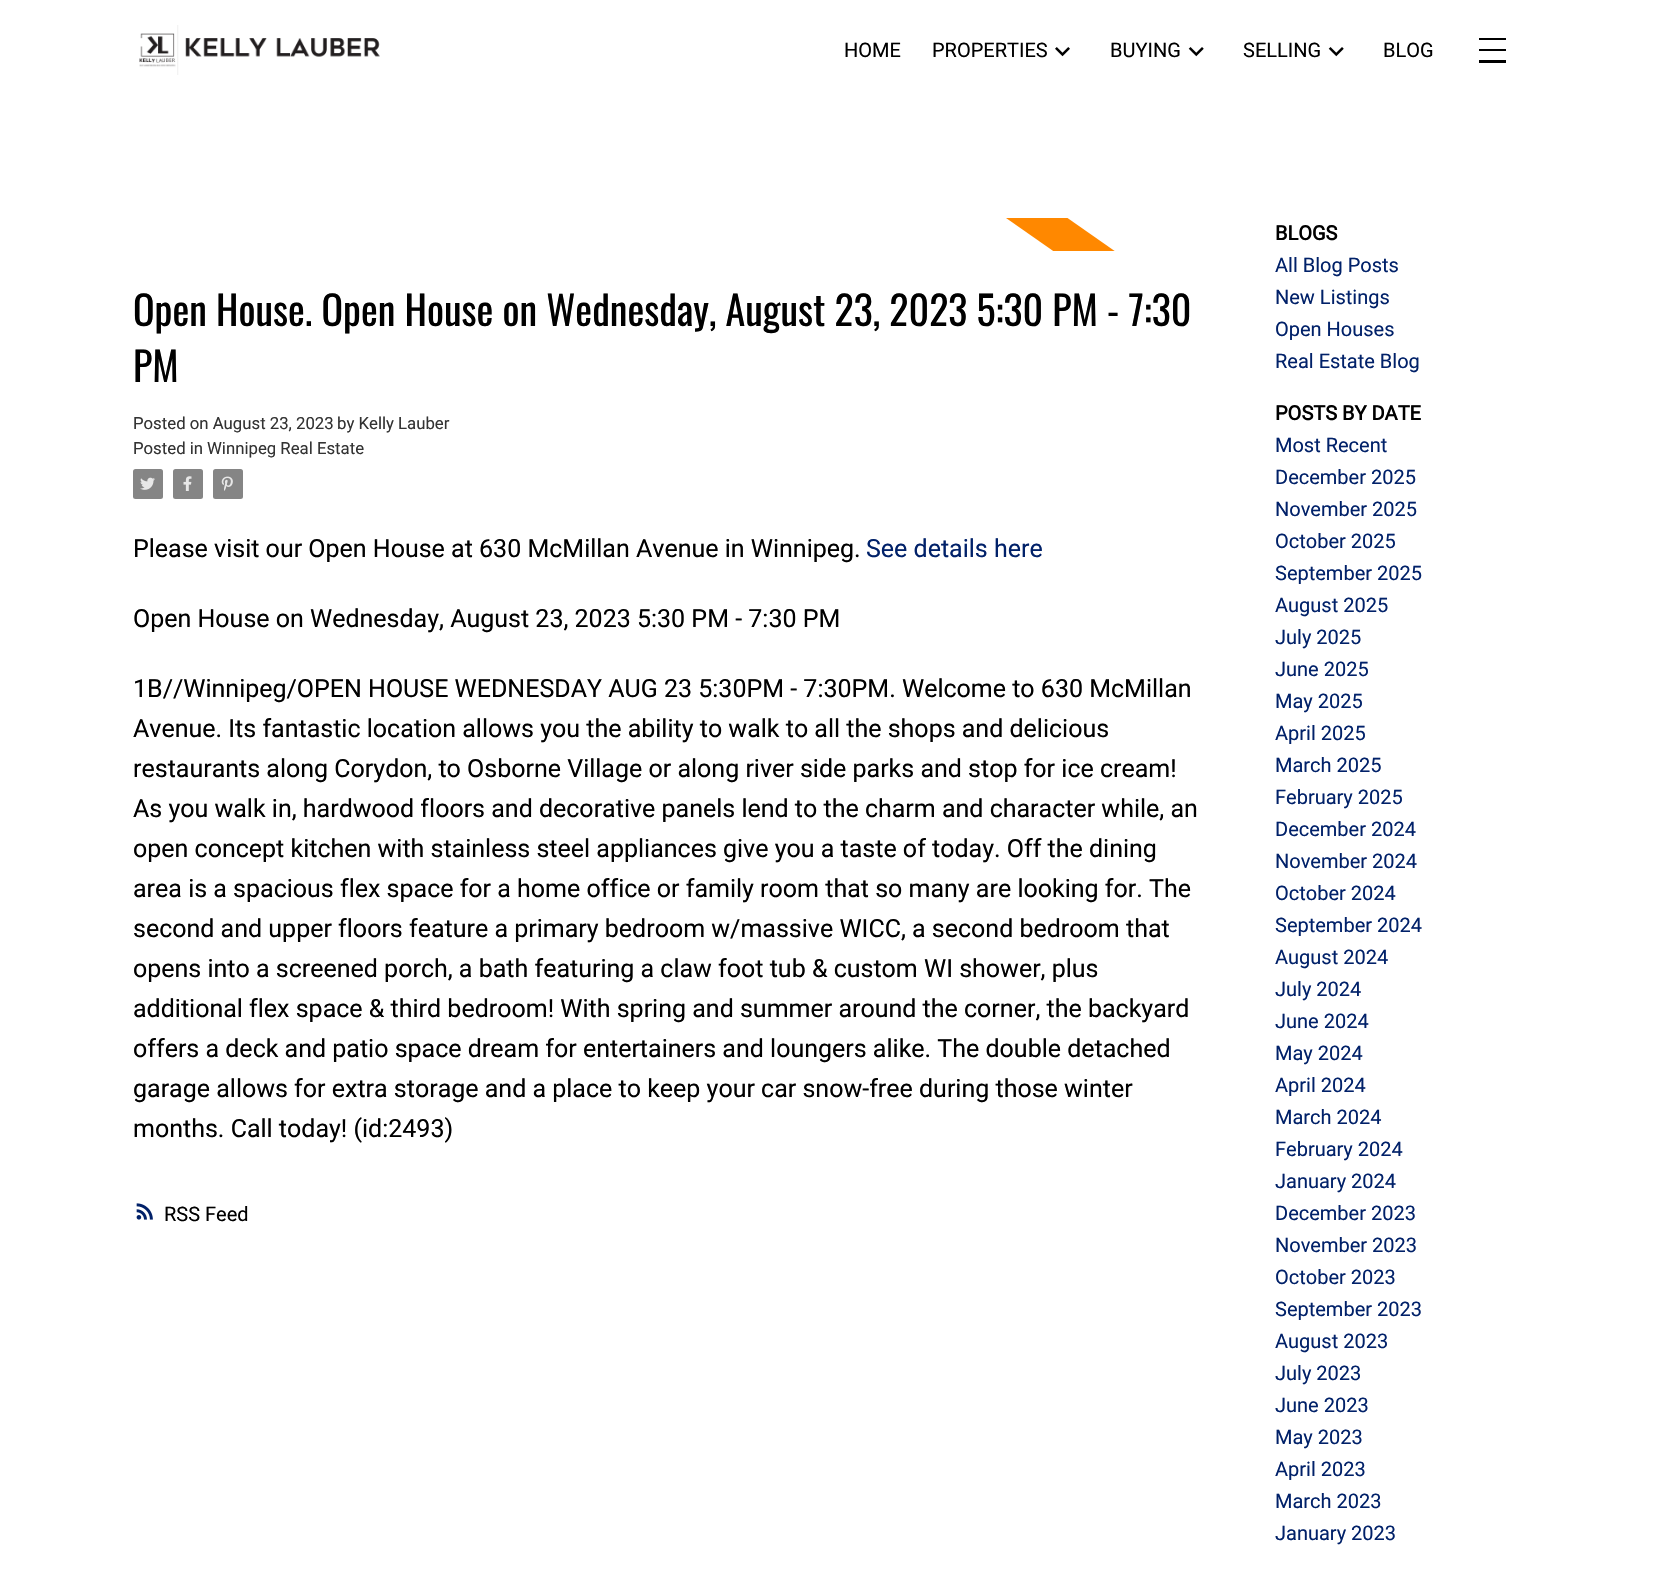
void draw(SkCanvas* canvas) {
  SkPaint paint;
  paint.setAntiAlias(true);
  auto face = [&](const char* family, int weight, float size, bool italic = false) {
    SkFontStyle style(weight, SkFontStyle::kNormal_Width,
      italic ? SkFontStyle::kItalic_Slant : SkFontStyle::kUpright_Slant);
    SkFont result(fontMgr->matchFamilyStyle(family, style), size);
    result.setSubpixel(true);
    return result;
  };
  auto paste = [&](const char* path, float x, float y, float w, float h) {
    auto image = SkImages::DeferredFromEncodedData(SkData::MakeFromFileName(path));
    canvas->drawImageRect(image, SkRect::MakeXYWH(x, y, w, h), SkSamplingOptions());
  };
  auto shape = [&](const char* data, bool evenOdd = false) {
    SkPath result = *SkParsePath::FromSVGString(data);
    if (evenOdd) result.setFillType(SkPathFillType::kEvenOdd);
    return result;
  };
  canvas->clear(0xffffffff);
  paste("img/1.png", 139, 25, 241, 50);
  paste("img/2.png", 1055, 47, 15, 10);
  paste("img/3.png", 1188, 47, 16, 10);
  paste("img/3.png", 1328, 47, 16, 10);
  {
    const struct { float x, y, w, h; SkColor color; } items[] = {
      {1479, 38, 27, 2, 0xff000000},
      {1479, 49, 27, 2, 0xff000000},
      {1479, 60, 27, 3, 0xff000000},
    };
    for (auto [x, y, w, h, color] : items) {
      paint.setColor(color);
      canvas->drawRect(SkRect::MakeXYWH(x, y, w, h), paint);
    }
  }
  canvas->save();
  canvas->clipRect(SkRect::MakeXYWH(133, 218, 1072, 33));
  paint.setColor(0xffff8800);
  canvas->drawPath(shape("M1006 175L1262 354L1242 383L986 204Z"), paint);
  canvas->restore();
  paint.setColor(0xff858585);
  canvas->drawRoundRect(SkRect::MakeXYWH(133, 469, 30, 30), 2.5f, 2.5f, paint);
  paste("img/4.png", 140, 477, 15, 13);
  canvas->drawRoundRect(SkRect::MakeXYWH(173, 469, 30, 30), 2.5f, 2.5f, paint);
  paste("img/5.png", 183, 476, 9, 15);
  canvas->drawRoundRect(SkRect::MakeXYWH(213, 469, 30, 30), 2.5f, 2.5f, paint);
  paste("img/6.png", 221, 476, 12, 15);
  paste("img/7.png", 136, 1203, 17, 17);
  auto f0 = face("Roboto", 400, 20);
  paint.setColor(0xff000000);
  {
    const struct { const char* s; float x, y; } items[] = {
      {"HOME", 844, 57},
      {"PROPERTIES", 932, 57},
      {"BUYING", 1110, 57},
      {"SELLING", 1243, 57},
      {"BLOG", 1383, 57},
    };
    for (auto [s, x, y] : items) {
      canvas->drawString(s, x, y, f0, paint);
    }
  }
  auto f1 = face("Oswald", 400, 40);
  canvas->drawString("Open House. Open House on Wednesday, August 23, 2023 5:30 PM - 7:30", 133, 326, f1, paint);
  canvas->drawString("PM", 133, 382, f1, paint);
  auto f2 = face("Roboto", 400, 16.75f);
  paint.setColor(0xff333333);
  {
    const struct { const char* s; float x, y; } items[] = {
      {"Posted on August 23, 2023", 133, 429},
      {"by Kelly Lauber", 337, 429},
      {"Posted in", 133, 454},
      {"Winnipeg Real Estate", 207, 454},
    };
    for (auto [s, x, y] : items) {
      canvas->drawString(s, x, y, f2, paint);
    }
  }
  auto f3 = face("Roboto", 400, 25);
  paint.setColor(0xff000000);
  canvas->drawString("Please visit our Open House at 630 McMillan Avenue in Winnipeg.", 133, 557, f3, paint);
  paint.setColor(0xff012169);
  canvas->drawString("See details here", 866, 557, f3, paint);
  paint.setColor(0xff000000);
  {
    const struct { const char* s; float x, y; } items[] = {
      {"Open House on Wednesday, August 23, 2023 5:30 PM - 7:30 PM", 133, 627},
      {"1B//Winnipeg/OPEN HOUSE WEDNESDAY AUG 23 5:30PM - 7:30PM. Welcome to 630 McMillan", 133, 697},
      {"Avenue. Its fantastic location allows you the ability to walk to all the shops and delicious", 133, 737},
      {"restaurants along Corydon, to Osborne Village or along river side parks and stop for ice cream!", 133, 777},
      {"As you walk in, hardwood floors and decorative panels lend to the charm and character while, an", 133, 817},
      {"open concept kitchen with stainless steel appliances give you a taste of today. Off the dining", 133, 857},
      {"area is a spacious flex space for a home office or family room that so many are looking for. The", 133, 897},
      {"second and upper floors feature a primary bedroom w/massive WICC, a second bedroom that", 133, 937},
      {"opens into a screened porch, a bath featuring a claw foot tub & custom WI shower, plus", 133, 977},
      {"additional flex space & third bedroom! With spring and summer around the corner, the backyard", 133, 1017},
      {"offers a deck and patio space dream for entertainers and loungers alike. The double detached", 133, 1057},
      {"garage allows for extra storage and a place to keep your car snow-free during those winter", 133, 1097},
      {"months. Call today! (id:2493)", 133, 1137},
    };
    for (auto [s, x, y] : items) {
      canvas->drawString(s, x, y, f3, paint);
    }
  }
  canvas->drawString("RSS Feed", 164, 1221, f0, paint);
  auto f4 = face("Roboto", 700, 20);
  canvas->drawString("BLOGS", 1275, 240, f4, paint);
  paint.setColor(0xff012169);
  {
    const struct { const char* s; float x, y; } items[] = {
      {"All Blog Posts", 1275, 272},
      {"New Listings", 1275, 304},
      {"Open Houses", 1275, 336},
      {"Real Estate Blog", 1275, 368},
    };
    for (auto [s, x, y] : items) {
      canvas->drawString(s, x, y, f0, paint);
    }
  }
  paint.setColor(0xff000000);
  canvas->drawString("POSTS BY DATE", 1275, 420, f4, paint);
  paint.setColor(0xff012169);
  {
    const struct { const char* s; float x, y; } items[] = {
      {"Most Recent", 1275, 452},
      {"December 2025", 1275, 484},
      {"November 2025", 1275, 516},
      {"October 2025", 1275, 548},
      {"September 2025", 1275, 580},
      {"August 2025", 1275, 612},
      {"July 2025", 1275, 644},
      {"June 2025", 1275, 676},
      {"May 2025", 1275, 708},
      {"April 2025", 1275, 740},
      {"March 2025", 1275, 772},
      {"February 2025", 1275, 804},
      {"December 2024", 1275, 836},
      {"November 2024", 1275, 868},
      {"October 2024", 1275, 900},
      {"September 2024", 1275, 932},
      {"August 2024", 1275, 964},
      {"July 2024", 1275, 996},
      {"June 2024", 1275, 1028},
      {"May 2024", 1275, 1060},
      {"April 2024", 1275, 1092},
      {"March 2024", 1275, 1124},
      {"February 2024", 1275, 1156},
      {"January 2024", 1275, 1188},
      {"December 2023", 1275, 1220},
      {"November 2023", 1275, 1252},
      {"October 2023", 1275, 1284},
      {"September 2023", 1275, 1316},
      {"August 2023", 1275, 1348},
      {"July 2023", 1275, 1380},
      {"June 2023", 1275, 1412},
      {"May 2023", 1275, 1444},
      {"April 2023", 1275, 1476},
      {"March 2023", 1275, 1508},
      {"January 2023", 1275, 1540},
    };
    for (auto [s, x, y] : items) {
      canvas->drawString(s, x, y, f0, paint);
    }
  }
}
